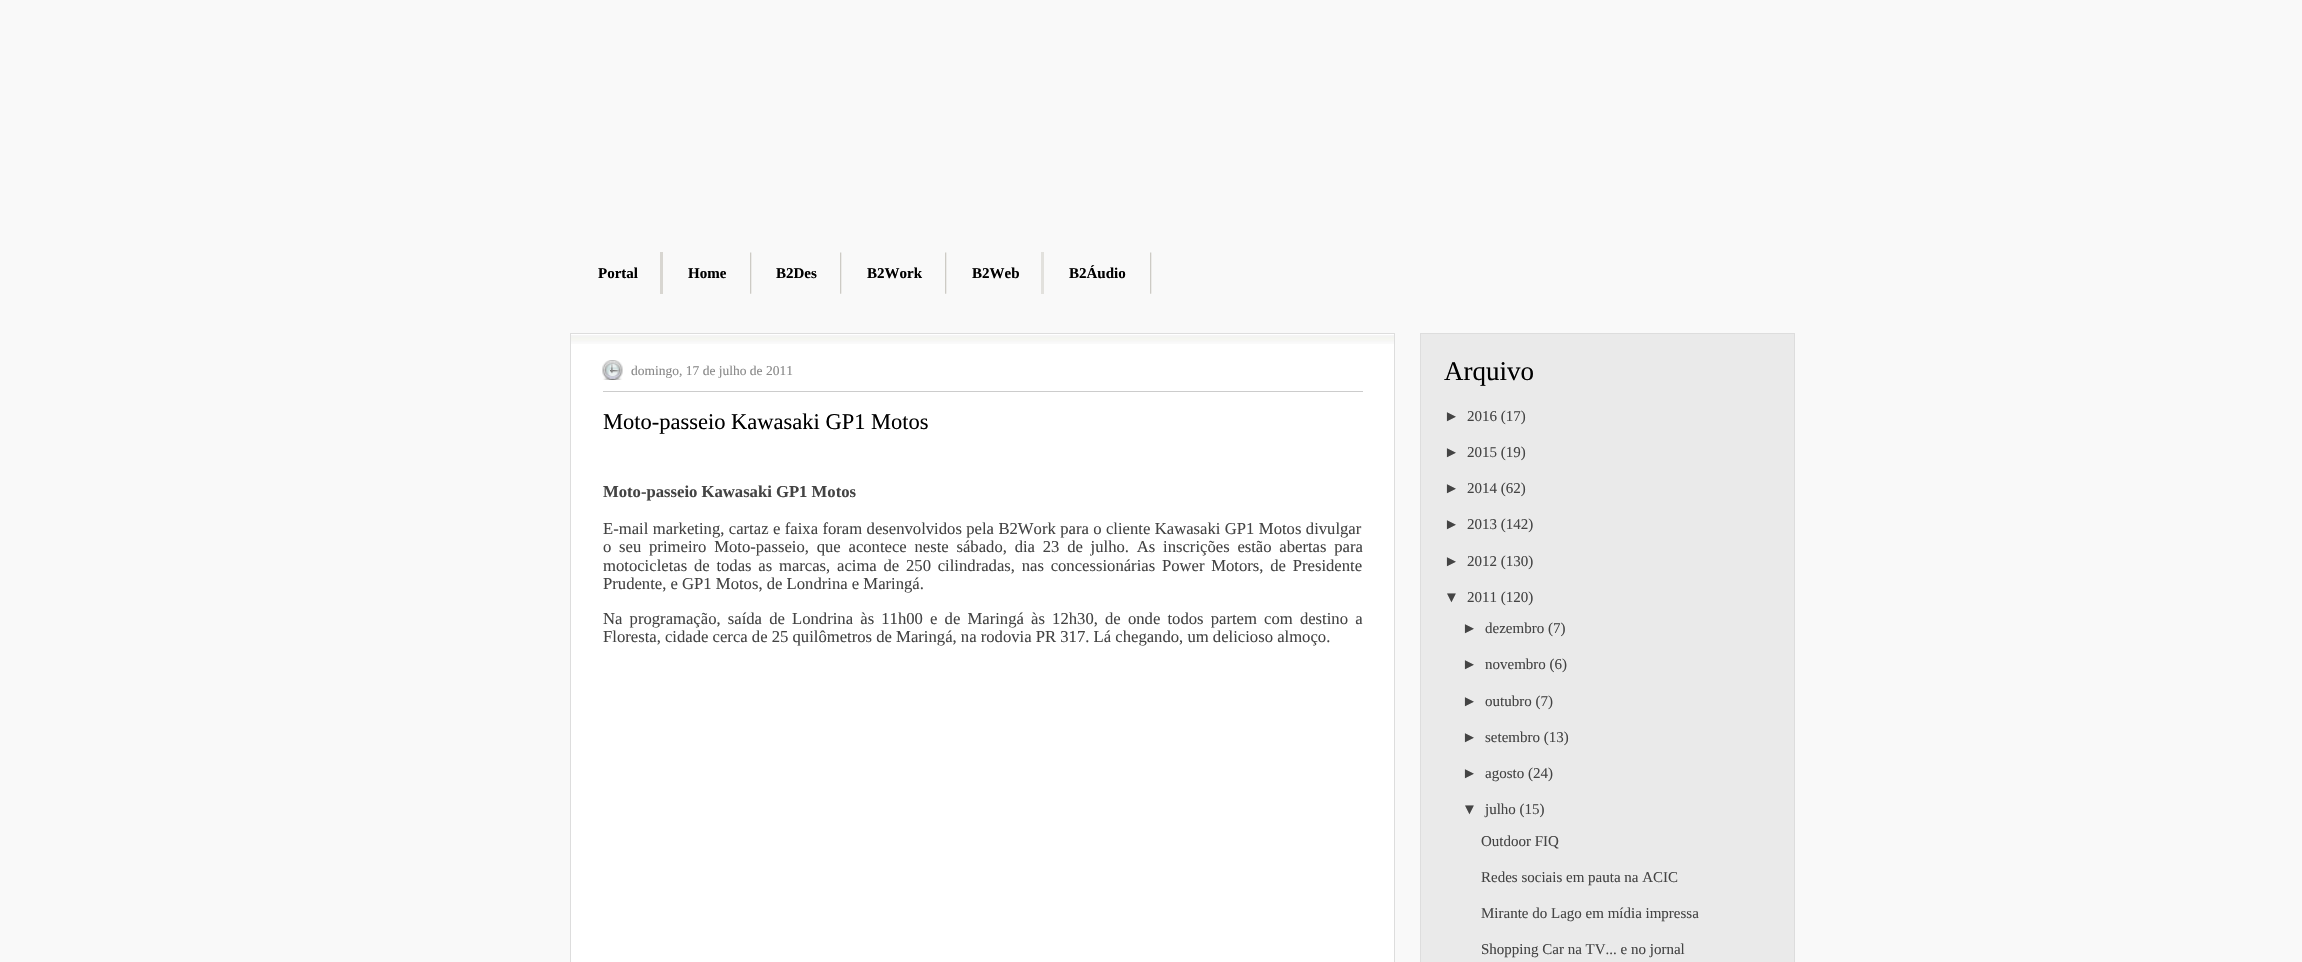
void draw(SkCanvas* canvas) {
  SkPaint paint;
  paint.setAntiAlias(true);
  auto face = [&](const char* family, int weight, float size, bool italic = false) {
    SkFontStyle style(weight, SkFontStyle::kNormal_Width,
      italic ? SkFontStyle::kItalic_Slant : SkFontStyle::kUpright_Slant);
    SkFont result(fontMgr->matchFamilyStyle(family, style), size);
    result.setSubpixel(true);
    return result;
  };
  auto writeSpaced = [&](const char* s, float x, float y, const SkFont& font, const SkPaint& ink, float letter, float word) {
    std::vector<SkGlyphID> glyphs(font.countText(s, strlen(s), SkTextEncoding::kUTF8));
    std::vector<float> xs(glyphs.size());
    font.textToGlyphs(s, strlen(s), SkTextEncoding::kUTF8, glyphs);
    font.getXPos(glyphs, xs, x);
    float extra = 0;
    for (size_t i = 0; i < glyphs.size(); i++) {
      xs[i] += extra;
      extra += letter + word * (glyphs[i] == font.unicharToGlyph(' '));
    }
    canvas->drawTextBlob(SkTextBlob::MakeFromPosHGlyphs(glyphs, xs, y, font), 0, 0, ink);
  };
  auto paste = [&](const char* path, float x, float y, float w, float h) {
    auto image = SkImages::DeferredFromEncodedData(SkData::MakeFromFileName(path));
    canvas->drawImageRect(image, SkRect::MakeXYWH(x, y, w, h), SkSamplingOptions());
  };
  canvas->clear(0xfff9f9f9);
  paint.setColor(0xffd8d6d1);
  canvas->drawRect(SkRect::MakeXYWH(660, 252, 3, 42), paint);
  paste("img/1.png", 750, 252, 2, 42);
  paste("img/1.png", 840, 252, 2, 42);
  paste("img/1.png", 945, 252, 2, 42);
  paint.setColor(0xffe2e1dd);
  canvas->drawRect(SkRect::MakeXYWH(1041, 252, 3, 42), paint);
  paste("img/1.png", 1150, 252, 2, 42);
  paint.setColor(0xffffffff);
  canvas->drawRect(SkRect::MakeXYWH(571, 334, 823, 628), paint);
  paste("img/2.png", 571, 335, 823, 9);
  paint.setStroke(true);
  paint.setStrokeWidth(1);
  paint.setColor(0xffdddddd);
  canvas->drawRect(SkRect::MakeXYWH(570.5f, 333.5f, 824, 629), paint);
  paste("img/3.png", 602, 360, 21, 20);
  paint.setStroke(false);
  paint.setColor(0xffcccccc);
  canvas->drawRect(SkRect::MakeXYWH(603, 391, 760, 1), paint);
  paint.setColor(0xffeaeaea);
  canvas->drawRect(SkRect::MakeXYWH(1420.5f, 333.5f, 374, 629), paint);
  paint.setStroke(true);
  paint.setColor(0xffdddddd);
  canvas->drawRect(SkRect::MakeXYWH(1420.5f, 333.5f, 374, 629), paint);
  auto f0 = face("Liberation Serif", 700, 15);
  paint.setStroke(false);
  paint.setColor(0xff000000);
  {
    const struct { const char* s; float x, y; } items[] = {
      {"Portal", 598, 278},
      {"Home", 688, 278},
      {"B2Des", 776, 278},
      {"B2Work", 867, 278},
      {"B2Web", 972, 278},
      {"B2Áudio", 1069, 278},
    };
    for (auto [s, x, y] : items) {
      canvas->drawString(s, x, y, f0, paint);
    }
  }
  auto f1 = face("Liberation Serif", 400, 13.5f);
  paint.setColor(0xff888888);
  canvas->drawString("domingo, 17 de julho de 2011", 631, 375, f1, paint);
  auto f2 = face("Liberation Serif", 400, 22.5f);
  paint.setColor(0xff000000);
  canvas->drawString("Moto-passeio Kawasaki GP1 Motos", 603, 429, f2, paint);
  auto f3 = face("Liberation Serif", 700, 16.65f);
  paint.setColor(0xff444444);
  canvas->drawString("Moto-passeio Kawasaki GP1 Motos", 603, 497, f3, paint);
  auto f4 = face("Liberation Serif", 400, 16.65f);
  writeSpaced("E-mail marketing, cartaz e faixa foram desenvolvidos pela B2Work para o cliente Kawasaki GP1 Motos divulgar", 603, 534, f4, paint, 0, 0.25f);
  writeSpaced("o seu primeiro Moto-passeio, que acontece neste sábado, dia 23 de julho. As inscrições estão abertas para", 603, 552, f4, paint, 0, 3.6f);
  writeSpaced("motocicletas de todas as marcas, acima de 250 cilindradas, nas concessionárias Power Motors, de Presidente", 603, 571, f4, paint, 0, 2.6f);
  canvas->drawString("Prudente, e GP1 Motos, de Londrina e Maringá.", 603, 589, f4, paint);
  writeSpaced("Na programação, saída de Londrina às 11h00 e de Maringá às 12h30, de onde todos partem com destino a", 603, 624, f4, paint, 0, 3);
  canvas->drawString("Floresta, cidade cerca de 25 quilômetros de Maringá, na rodovia PR 317. Lá chegando, um delicioso almoço.", 603, 642, f4, paint);
  auto f5 = face("Liberation Serif", 400, 27);
  paint.setColor(0xff000000);
  canvas->drawString("Arquivo", 1444, 380, f5, paint);
  auto f6 = face("Liberation Sans", 400, 15);
  paint.setColor(0xff444444);
  canvas->drawString("►", 1444, 421, f6, paint);
  auto f7 = face("Liberation Serif", 400, 15);
  canvas->drawString("2016 (17)", 1467, 421, f7, paint);
  canvas->drawString("►", 1444, 457, f6, paint);
  canvas->drawString("2015 (19)", 1467, 457, f7, paint);
  canvas->drawString("►", 1444, 493, f6, paint);
  canvas->drawString("2014 (62)", 1467, 493, f7, paint);
  canvas->drawString("►", 1444, 529, f6, paint);
  canvas->drawString("2013 (142)", 1467, 529, f7, paint);
  canvas->drawString("►", 1444, 566, f6, paint);
  canvas->drawString("2012 (130)", 1467, 566, f7, paint);
  canvas->drawString("▼", 1444, 602, f6, paint);
  canvas->drawString("2011 (120)", 1467, 602, f7, paint);
  canvas->drawString("►", 1462, 633, f6, paint);
  canvas->drawString("dezembro (7)", 1485, 633, f7, paint);
  canvas->drawString("►", 1462, 669, f6, paint);
  canvas->drawString("novembro (6)", 1485, 669, f7, paint);
  canvas->drawString("►", 1462, 706, f6, paint);
  canvas->drawString("outubro (7)", 1485, 706, f7, paint);
  canvas->drawString("►", 1462, 742, f6, paint);
  canvas->drawString("setembro (13)", 1485, 742, f7, paint);
  canvas->drawString("►", 1462, 778, f6, paint);
  canvas->drawString("agosto (24)", 1485, 778, f7, paint);
  canvas->drawString("▼", 1462, 814, f6, paint);
  {
    const struct { const char* s; float x, y; } items[] = {
      {"julho (15)", 1485, 814},
      {"Outdoor FIQ", 1481, 846},
      {"Redes sociais em pauta na ACIC", 1481, 882},
      {"Mirante do Lago em mídia impressa", 1481, 918},
      {"Shopping Car na TV... e no jornal", 1481, 954},
    };
    for (auto [s, x, y] : items) {
      canvas->drawString(s, x, y, f7, paint);
    }
  }
}
